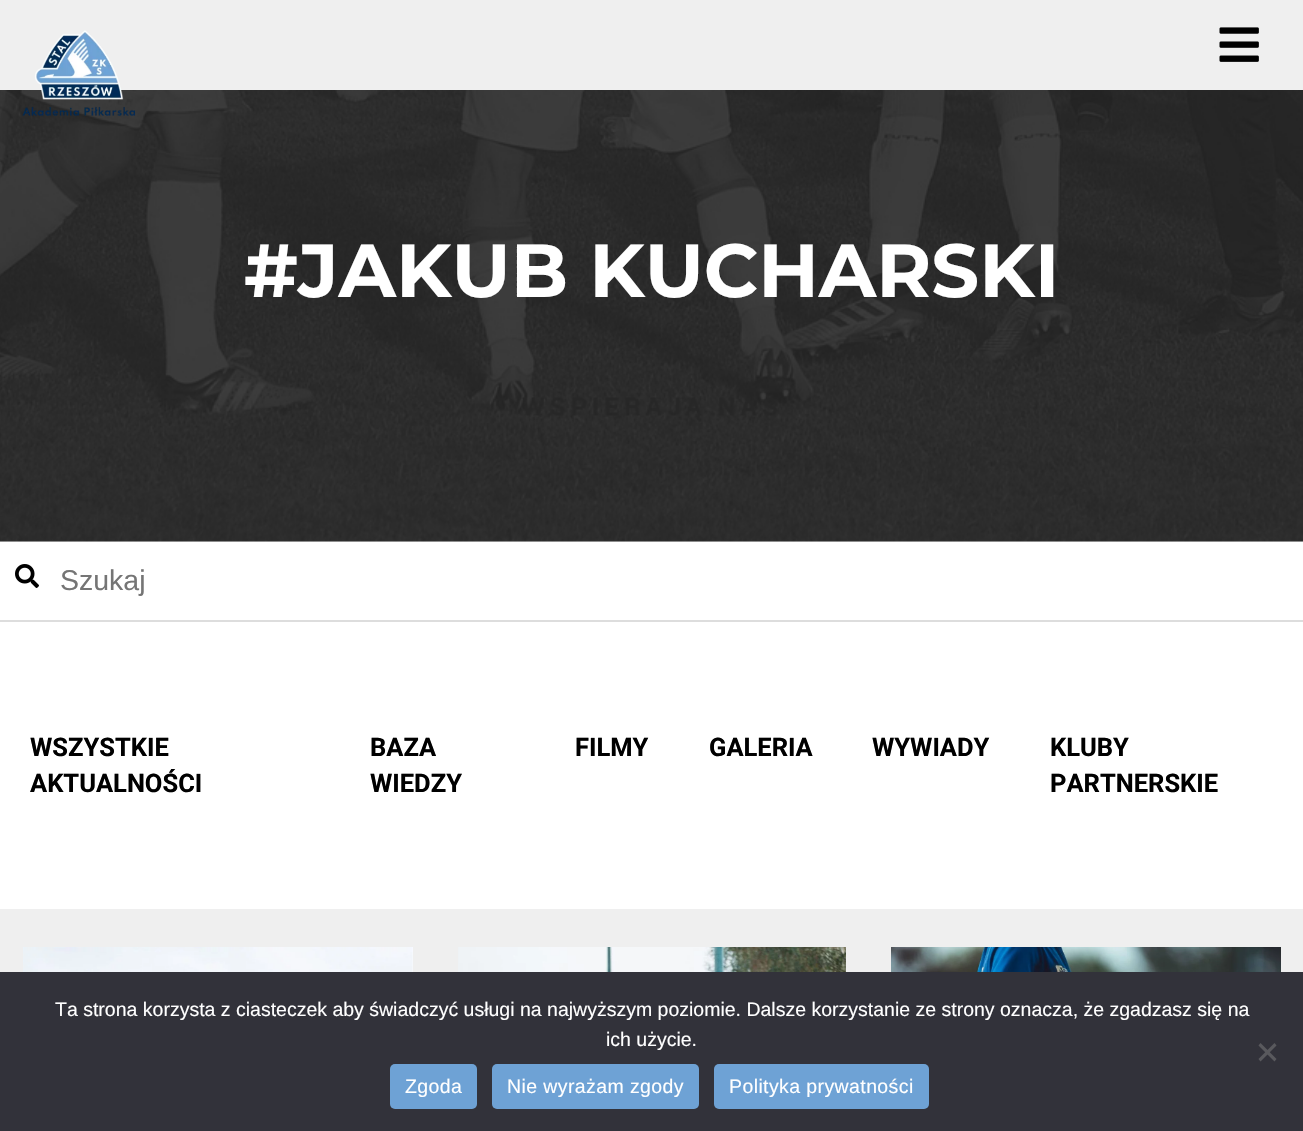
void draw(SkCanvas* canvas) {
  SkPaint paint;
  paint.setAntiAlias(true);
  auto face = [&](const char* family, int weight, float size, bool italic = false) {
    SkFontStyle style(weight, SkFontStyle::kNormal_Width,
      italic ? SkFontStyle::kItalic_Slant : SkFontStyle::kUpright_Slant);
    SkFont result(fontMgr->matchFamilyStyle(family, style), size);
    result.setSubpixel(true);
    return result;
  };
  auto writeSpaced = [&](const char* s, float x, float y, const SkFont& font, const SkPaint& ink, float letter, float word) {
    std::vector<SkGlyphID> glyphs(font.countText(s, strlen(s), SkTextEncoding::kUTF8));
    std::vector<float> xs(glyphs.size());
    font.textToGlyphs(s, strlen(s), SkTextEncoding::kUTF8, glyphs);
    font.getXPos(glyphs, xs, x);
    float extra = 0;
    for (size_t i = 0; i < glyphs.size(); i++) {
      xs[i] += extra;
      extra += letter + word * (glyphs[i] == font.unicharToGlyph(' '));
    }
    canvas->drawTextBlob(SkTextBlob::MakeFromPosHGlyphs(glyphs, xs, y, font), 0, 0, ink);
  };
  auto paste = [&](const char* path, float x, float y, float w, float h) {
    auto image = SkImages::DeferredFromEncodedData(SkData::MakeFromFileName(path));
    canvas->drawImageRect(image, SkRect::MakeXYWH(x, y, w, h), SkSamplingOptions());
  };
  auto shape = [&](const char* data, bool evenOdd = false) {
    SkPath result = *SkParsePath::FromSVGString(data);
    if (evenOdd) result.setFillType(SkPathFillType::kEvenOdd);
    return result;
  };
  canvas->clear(0xffefefef);
  paste("img/3.png", 0, 90, 1303, 452);
  paste("img/1.png", 22, 30, 113, 86);
  paste("img/2.png", 1219, 27, 40, 35);
  paint.setColor(0xffffffff);
  canvas->drawRect(SkRect::MakeXYWH(0, 542, 1303, 78), paint);
  paste("img/4.png", 15, 564, 24, 24);
  {
    const struct { float x, y, w, h; SkColor color; } items[] = {
      {0, 620, 1303, 2, 0xffdddddd},
      {0, 622, 1303, 287, 0xffffffff},
      {412, 947, 1, 25, 0xffffffff},
    };
    for (auto [x, y, w, h, color] : items) {
      paint.setColor(color);
      canvas->drawRect(SkRect::MakeXYWH(x, y, w, h), paint);
    }
  }
  paste("img/5.png", 23, 947, 390, 25);
  paste("img/6.png", 458, 947, 388, 25);
  paste("img/7.png", 891, 947, 390, 25);
  paint.setColor(0xff32323a);
  canvas->drawRect(SkRect::MakeXYWH(0, 972, 1303, 159), paint);
  paint.setColor(0xff59595d);
  canvas->drawPath(shape("M1274.5 1043L1276.5 1045.5L1260.5 1061.5L1258.5 1059Z"), paint);
  canvas->drawPath(shape("M1258.5 1045.5L1260.5 1043L1276.5 1059L1274.5 1061.5Z"), paint);
  paint.setColor(0xff6ea2d5);
  canvas->drawRoundRect(SkRect::MakeXYWH(390, 1064, 87, 45), 5, 5, paint);
  canvas->drawRoundRect(SkRect::MakeXYWH(492, 1064, 207, 45), 5, 5, paint);
  canvas->drawRoundRect(SkRect::MakeXYWH(714, 1064, 215, 45), 5, 5, paint);
  auto f0 = face("Montserrat", 700, 75);
  paint.setColor(0xffffffff);
  canvas->drawString("#JAKUB KUCHARSKI", 244, 297, f0, paint);
  auto f1 = face("Liberation Sans", 400, 28.5f);
  paint.setColor(0xff757575);
  canvas->drawString("Szukaj", 60, 590, f1, paint);
  auto f2 = face("Roboto", 700, 25.5f);
  paint.setColor(0xff000000);
  {
    const struct { const char* s; float x, y; } items[] = {
      {"WSZYSTKIE", 30, 756},
      {"AKTUALNOŚCI", 30, 792},
      {"BAZA", 370, 756},
      {"WIEDZY", 370, 792},
      {"FILMY", 575, 756},
      {"GALERIA", 709, 756},
      {"WYWIADY", 872, 756},
      {"KLUBY", 1050, 756},
      {"PARTNERSKIE", 1050, 792},
    };
    for (auto [s, x, y] : items) {
      canvas->drawString(s, x, y, f2, paint);
    }
  }
  auto f3 = face("Liberation Sans", 400, 19.5f);
  paint.setColor(0xffffffff);
  canvas->drawString("Ta strona korzysta z ciasteczek aby świadczyć usługi na najwyższym poziomie. Dalsze korzystanie ze strony oznacza, że zgadzasz się na", 55, 1016, f3, paint);
  canvas->drawString("ich użycie.", 606, 1046, f3, paint);
  {
    const struct { const char* s; float x, y; } items[] = {
      {"Zgoda", 405, 1093},
      {"Nie wyrażam zgody", 507, 1093},
      {"Polityka prywatności", 729, 1093},
    };
    for (auto [s, x, y] : items) {
      writeSpaced(s, x, y, f3, paint, 0.4f, 0);
    }
  }
}
